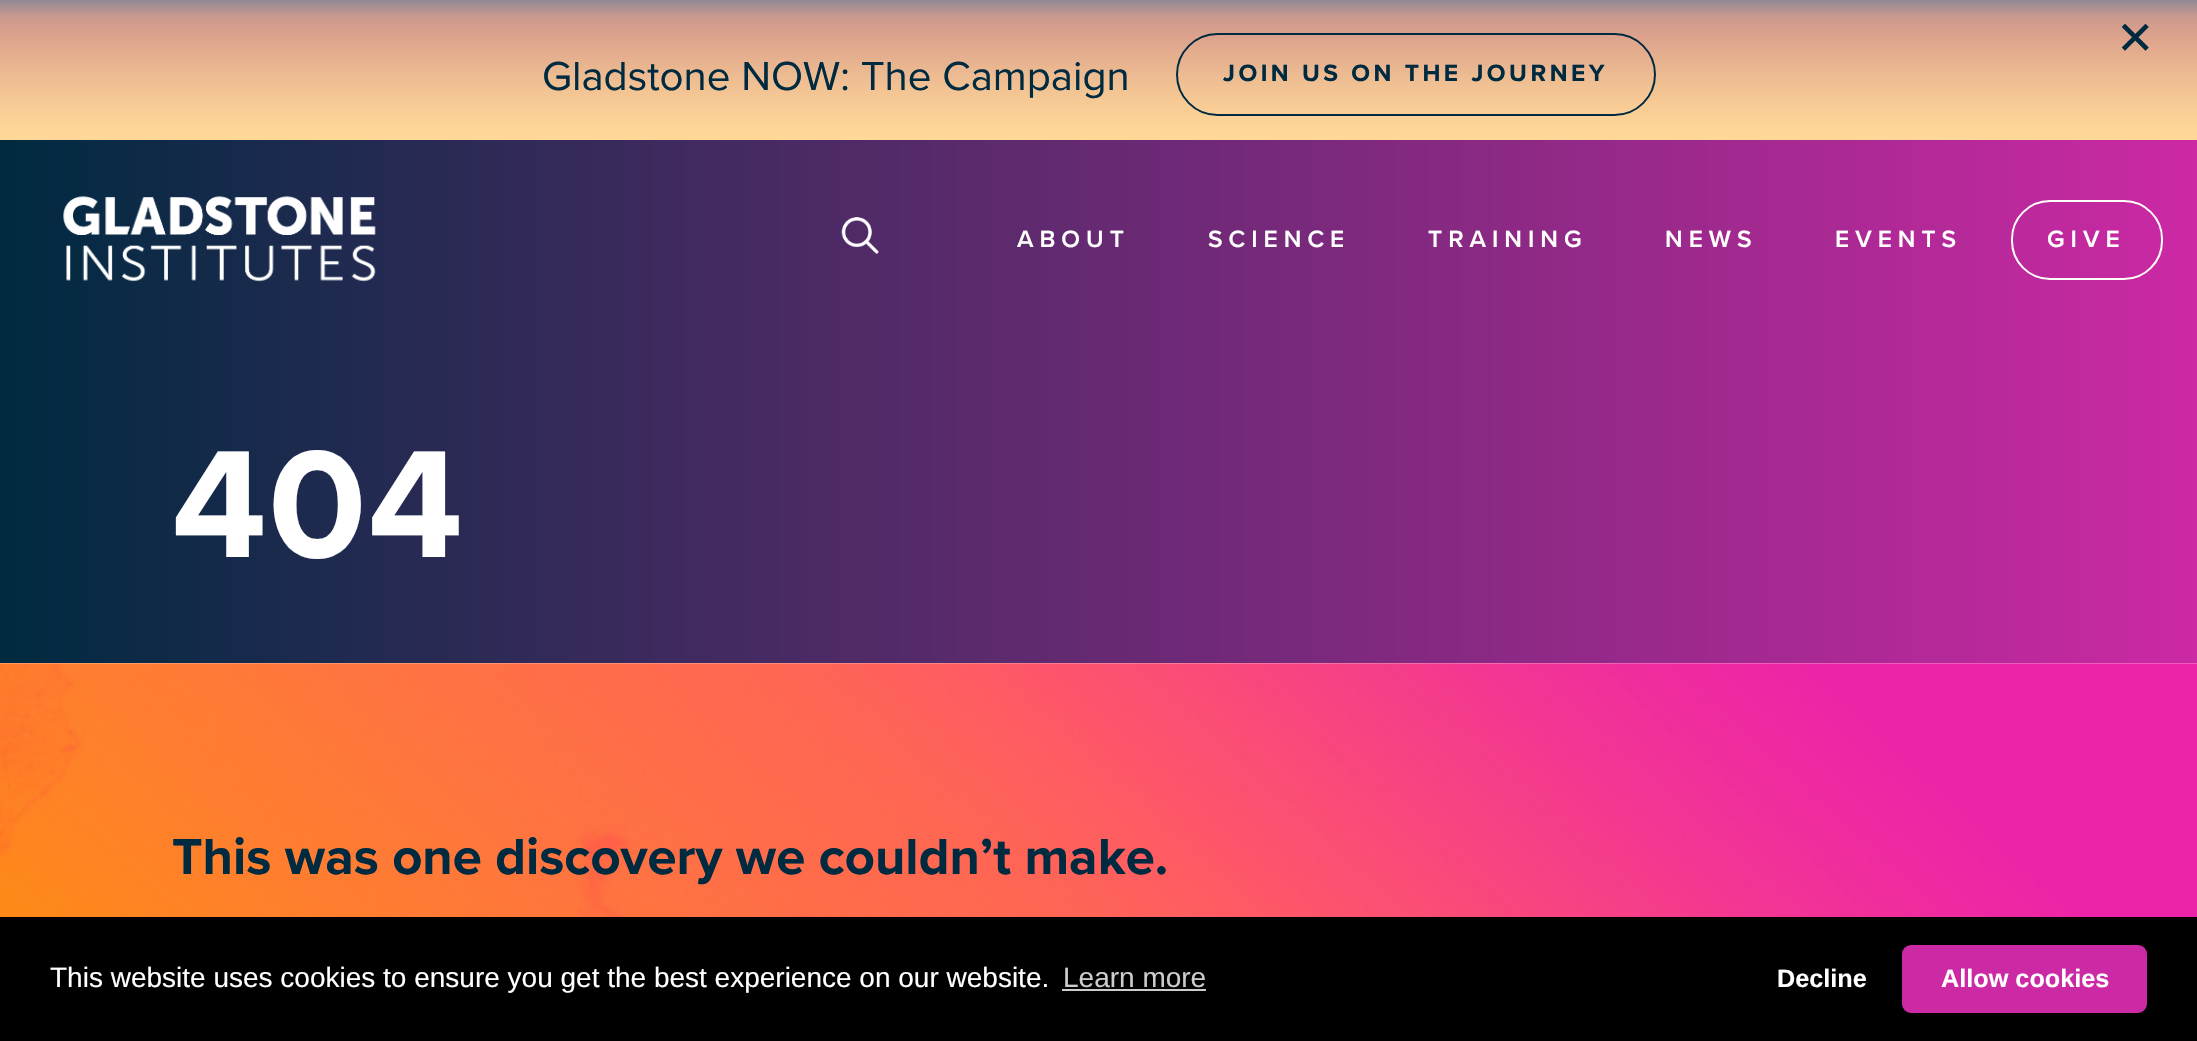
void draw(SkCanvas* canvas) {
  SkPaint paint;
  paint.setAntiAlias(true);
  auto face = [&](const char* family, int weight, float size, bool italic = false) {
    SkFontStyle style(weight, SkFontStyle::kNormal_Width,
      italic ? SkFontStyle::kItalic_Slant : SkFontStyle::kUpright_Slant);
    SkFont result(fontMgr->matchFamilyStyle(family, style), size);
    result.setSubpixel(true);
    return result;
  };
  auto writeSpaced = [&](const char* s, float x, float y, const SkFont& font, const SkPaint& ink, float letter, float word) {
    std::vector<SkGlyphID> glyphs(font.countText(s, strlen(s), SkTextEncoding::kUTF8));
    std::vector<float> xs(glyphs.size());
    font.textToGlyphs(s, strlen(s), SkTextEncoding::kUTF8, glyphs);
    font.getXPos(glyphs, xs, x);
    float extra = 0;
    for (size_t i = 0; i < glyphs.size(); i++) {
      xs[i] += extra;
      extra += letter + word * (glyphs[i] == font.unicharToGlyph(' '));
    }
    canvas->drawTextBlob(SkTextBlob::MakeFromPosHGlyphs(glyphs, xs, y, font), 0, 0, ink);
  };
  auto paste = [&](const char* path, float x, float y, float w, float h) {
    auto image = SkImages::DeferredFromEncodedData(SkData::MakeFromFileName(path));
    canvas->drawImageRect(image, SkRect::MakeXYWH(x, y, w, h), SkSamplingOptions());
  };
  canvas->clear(0xffffffff);
  paste("img/1.png", 0, 0, 2197, 140);
  paint.setStroke(true);
  paint.setStrokeWidth(2);
  paint.setColor(0xff002a40);
  canvas->drawRoundRect(SkRect::MakeXYWH(1177, 34, 478, 81), 40.5f, 40.5f, paint);
  paint.setStroke(false);
  {
    const SkColor colors[] = {0xff002a40, 0xffcc29a4};
    const float stops[] = {0, 1};
    const SkPoint ends[] = {{0, 402}, {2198, 402}};
    paint.setShader(SkGradientShader::MakeLinear(ends, colors, stops, 2, SkTileMode::kClamp));
    paint.setAlpha(255);
  }
  canvas->drawRect(SkRect::MakeXYWH(0, 140, 2197, 523), paint);
  paste("img/2.png", 63, 196, 313, 86);
  paste("img/3.png", 841, 217, 38, 37);
  paint.setStroke(true);
  paint.setShader(nullptr);
  paint.setColor(0xffffffff);
  canvas->drawRoundRect(SkRect::MakeXYWH(2012, 201, 150, 78), 38, 38, paint);
  paste("img/4.png", 0, 663, 2197, 254);
  paint.setStroke(false);
  paint.setColor(0xff000000);
  canvas->drawRect(SkRect::MakeXYWH(0, 917, 2197, 124), paint);
  paint.setColor(0xffcccccc);
  canvas->drawRect(SkRect::MakeXYWH(1062, 989, 144, 2), paint);
  paint.setColor(0xffcc29a4);
  canvas->drawRoundRect(SkRect::MakeXYWH(1904, 947, 241, 64), 7, 7, paint);
  paint.setStroke(true);
  paint.setStrokeWidth(4);
  canvas->drawRoundRect(SkRect::MakeXYWH(1904, 947, 241, 64), 7, 7, paint);
  auto f0 = face("DejaVu Sans", 400, 46);
  paint.setStroke(false);
  paint.setColor(0xff002a40);
  canvas->drawString("✕", 2116, 54, f0, paint);
  auto f1 = face("Proxima Nova", 400, 42);
  canvas->drawString("Gladstone NOW: The Campaign", 542, 90, f1, paint);
  auto f2 = face("Proxima Nova", 700, 24.5f);
  writeSpaced("JOIN US ON THE JOURNEY", 1223, 81, f2, paint, 3.5f, 0);
  auto f3 = face("Proxima Nova", 600, 24.5f);
  paint.setColor(0xffffffff);
  {
    const struct { const char* s; float x, y; } items[] = {
      {"ABOUT", 1017, 247},
      {"SCIENCE", 1208, 247},
      {"TRAINING", 1428, 247},
      {"NEWS", 1665, 247},
      {"EVENTS", 1835, 247},
      {"GIVE", 2047, 247},
    };
    for (auto [s, x, y] : items) {
      writeSpaced(s, x, y, f3, paint, 6, 0);
    }
  }
  auto f4 = face("Proxima Nova", 700, 158);
  writeSpaced("404", 172, 557, f4, paint, 2, 0);
  auto f5 = face("Proxima Nova", 700, 52.5f);
  paint.setColor(0xff002a40);
  canvas->drawString("This was one discovery we couldn’t make.", 172, 874, f5, paint);
  auto f6 = face("Liberation Sans", 400, 28);
  paint.setColor(0xffffffff);
  canvas->drawString("This website uses cookies to ensure you get the best experience on our website.", 50, 987, f6, paint);
  paint.setColor(0xffcccccc);
  canvas->drawString("Learn more", 1063, 987, f6, paint);
  auto f7 = face("Liberation Sans", 700, 25.25f);
  paint.setColor(0xffffffff);
  canvas->drawString("Decline", 1777, 987, f7, paint);
  canvas->drawString("Allow cookies", 1941, 987, f7, paint);
}
